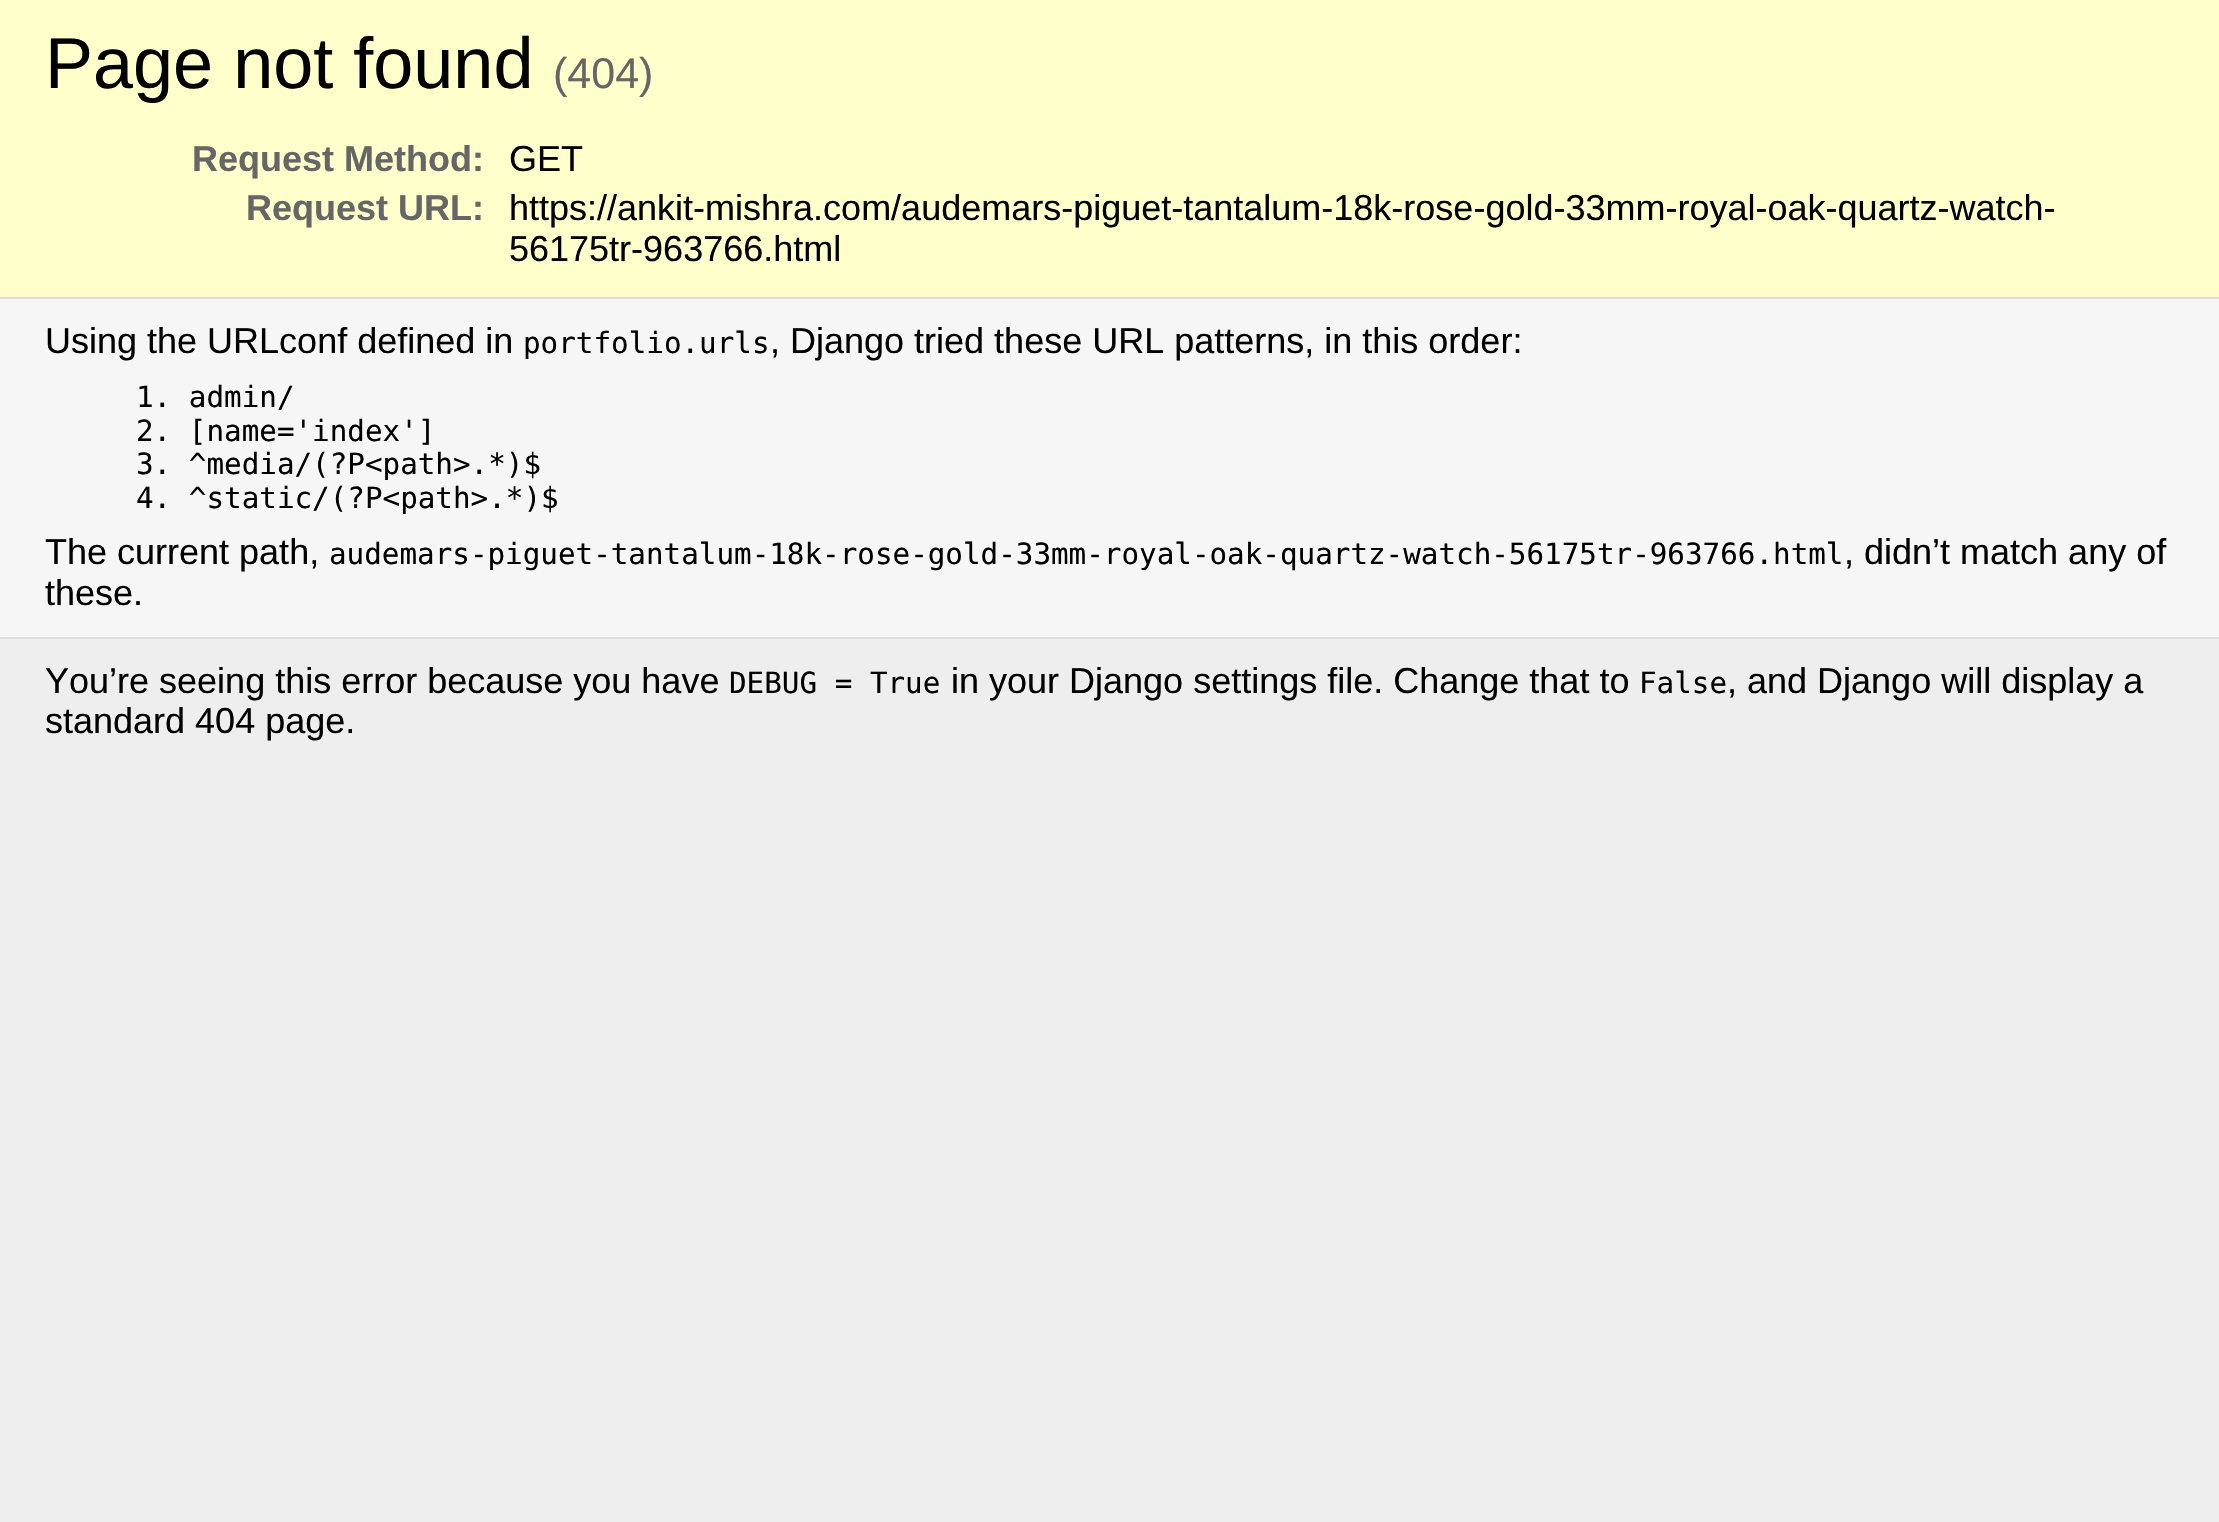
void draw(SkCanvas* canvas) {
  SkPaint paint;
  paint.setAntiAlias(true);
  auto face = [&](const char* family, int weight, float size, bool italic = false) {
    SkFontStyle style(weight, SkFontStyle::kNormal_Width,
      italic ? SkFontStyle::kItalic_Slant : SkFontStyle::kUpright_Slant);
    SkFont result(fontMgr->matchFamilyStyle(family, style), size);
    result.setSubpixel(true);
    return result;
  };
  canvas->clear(0xffeeeeee);
  {
    const struct { float x, y, w, h; SkColor color; } items[] = {
      {0, 0, 2219, 297, 0xffffffcc},
      {0, 297, 2219, 2, 0xffdddddd},
      {0, 299, 2219, 338, 0xfff6f6f6},
      {0, 637, 2219, 2, 0xffdddddd},
    };
    for (auto [x, y, w, h, color] : items) {
      paint.setColor(color);
      canvas->drawRect(SkRect::MakeXYWH(x, y, w, h), paint);
    }
  }
  auto f0 = face("Liberation Sans", 400, 72);
  paint.setColor(0xff000000);
  canvas->drawString("Page not found", 45, 88, f0, paint);
  auto f1 = face("Liberation Sans", 400, 43);
  paint.setColor(0xff666666);
  canvas->drawString("(404)", 553, 88, f1, paint);
  auto f2 = face("Liberation Sans", 700, 36);
  canvas->drawString("Request Method:", 192, 171, f2, paint);
  auto f3 = face("Liberation Sans", 400, 36);
  paint.setColor(0xff000000);
  canvas->drawString("GET", 509, 171, f3, paint);
  paint.setColor(0xff666666);
  canvas->drawString("Request URL:", 246, 220, f2, paint);
  paint.setColor(0xff000000);
  {
    const struct { const char* s; float x, y; } items[] = {
      {"https://ankit-mishra.com/audemars-piguet-tantalum-18k-rose-gold-33mm-royal-oak-quartz-watch-", 509, 220},
      {"56175tr-963766.html", 509, 261},
      {"Using the URLconf defined in", 45, 353},
    };
    for (auto [s, x, y] : items) {
      canvas->drawString(s, x, y, f3, paint);
    }
  }
  auto f4 = face("DejaVu Sans Mono", 400, 29.25f);
  canvas->drawString("portfolio.urls", 523, 353, f4, paint);
  canvas->drawString(", Django tried these URL patterns, in this order:", 770, 353, f3, paint);
  {
    const struct { const char* s; float x, y; } items[] = {
      {"1. admin/", 136, 407},
      {"2. [name='index']", 136, 441},
      {"3. ^media/(?P<path>.*)$", 136, 474},
      {"4. ^static/(?P<path>.*)$", 136, 508},
    };
    for (auto [s, x, y] : items) {
      canvas->drawString(s, x, y, f4, paint);
    }
  }
  canvas->drawString("The current path,", 45, 564, f3, paint);
  canvas->drawString("audemars-piguet-tantalum-18k-rose-gold-33mm-royal-oak-quartz-watch-56175tr-963766.html", 329, 564, f4, paint);
  {
    const struct { const char* s; float x, y; } items[] = {
      {", didn’t match any of", 1844, 564},
      {"these.", 45, 605},
      {"You’re seeing this error because you have", 45, 693},
    };
    for (auto [s, x, y] : items) {
      canvas->drawString(s, x, y, f3, paint);
    }
  }
  canvas->drawString("DEBUG = True", 729, 693, f4, paint);
  canvas->drawString("in your Django settings file. Change that to", 951, 693, f3, paint);
  canvas->drawString("False", 1639, 693, f4, paint);
  canvas->drawString(", and Django will display a", 1727, 693, f3, paint);
  canvas->drawString("standard 404 page.", 45, 733, f3, paint);
}
